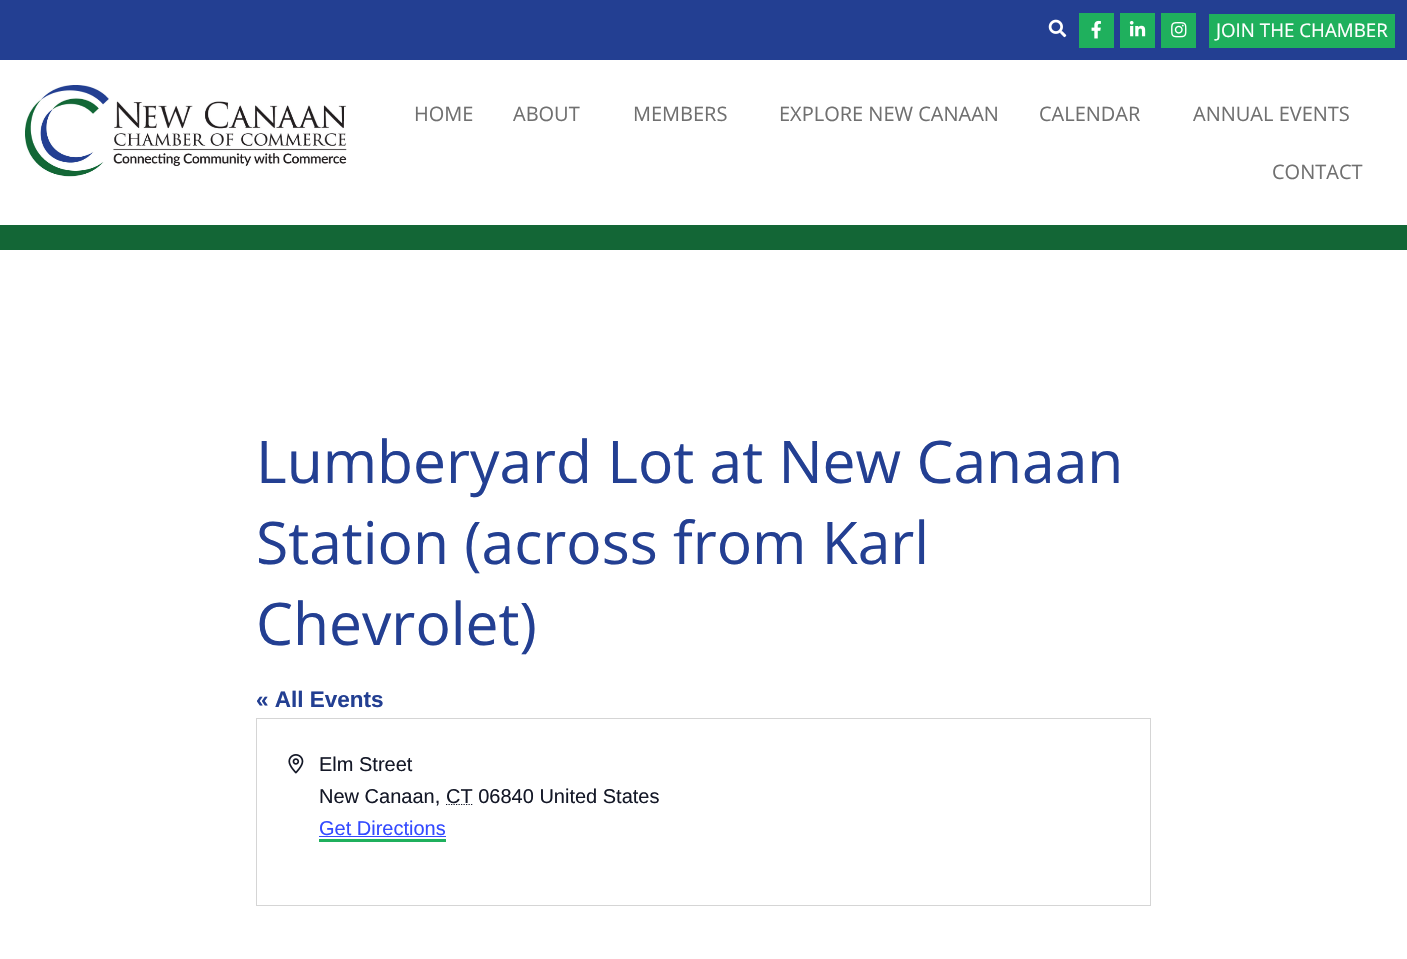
void draw(SkCanvas* canvas) {
  SkPaint paint;
  paint.setAntiAlias(true);
  auto face = [&](const char* family, int weight, float size, bool italic = false) {
    SkFontStyle style(weight, SkFontStyle::kNormal_Width,
      italic ? SkFontStyle::kItalic_Slant : SkFontStyle::kUpright_Slant);
    SkFont result(fontMgr->matchFamilyStyle(family, style), size);
    result.setSubpixel(true);
    return result;
  };
  auto paste = [&](const char* path, float x, float y, float w, float h) {
    auto image = SkImages::DeferredFromEncodedData(SkData::MakeFromFileName(path));
    canvas->drawImageRect(image, SkRect::MakeXYWH(x, y, w, h), SkSamplingOptions());
  };
  auto shape = [&](const char* data, bool evenOdd = false) {
    SkPath result = *SkParsePath::FromSVGString(data);
    if (evenOdd) result.setFillType(SkPathFillType::kEvenOdd);
    return result;
  };
  canvas->clear(0xffffffff);
  paint.setColor(0xff233f92);
  canvas->drawRect(SkRect::MakeXYWH(0, 0, 1407, 60), paint);
  paste("img/1.png", 1048, 19, 19, 19);
  paint.setColor(0xff1fb05d);
  canvas->drawRect(SkRect::MakeXYWH(1079, 13, 35, 35), paint);
  paste("img/2.png", 1091, 20, 10, 19);
  canvas->drawRect(SkRect::MakeXYWH(1120, 13, 35, 35), paint);
  paste("img/3.png", 1129, 20, 17, 17);
  canvas->drawRect(SkRect::MakeXYWH(1161, 13, 35, 35), paint);
  paste("img/4.png", 1171, 22, 16, 16);
  canvas->drawRect(SkRect::MakeXYWH(1209, 14, 186, 34), paint);
  paste("img/5.png", 25, 85, 322, 92);
  paint.setColor(0xff136636);
  canvas->drawRect(SkRect::MakeXYWH(0, 225, 1407, 25), paint);
  paint.setStroke(true);
  paint.setStrokeWidth(1);
  paint.setColor(0xffd5d5d5);
  canvas->drawRect(SkRect::MakeXYWH(256.5f, 718.5f, 894, 187), paint);
  paste("img/6.png", 288, 754, 16, 20);
  paint.setStrokeWidth(1.2f);
  paint.setColor(0xff141827);
  paint.setPathEffect(SkDashPathEffect::Make({{1.25f, 1.25f}}, 0));
  canvas->drawPath(shape("M446 804.5H472.5"), paint);
  paint.setPathEffect(nullptr);
  paint.setStroke(false);
  paint.setColor(0xff1fb05d);
  canvas->drawRect(SkRect::MakeXYWH(319, 839, 127, 3), paint);
  paint.setColor(0xff334aff);
  canvas->drawRect(SkRect::MakeXYWH(319, 836, 127, 1), paint);
  auto f0 = face("Open Sans", 400, 18.75f);
  paint.setColor(0xffffffff);
  canvas->drawString("JOIN THE CHAMBER", 1216, 37, f0, paint);
  auto f1 = face("Open Sans", 400, 20);
  paint.setColor(0xff707070);
  {
    const struct { const char* s; float x, y; } items[] = {
      {"HOME", 414, 121},
      {"ABOUT", 513, 121},
      {"MEMBERS", 633, 121},
      {"EXPLORE NEW CANAAN", 779, 121},
      {"CALENDAR", 1039, 121},
      {"ANNUAL EVENTS", 1193, 121},
      {"CONTACT", 1272, 179},
    };
    for (auto [s, x, y] : items) {
      canvas->drawString(s, x, y, f1, paint);
    }
  }
  auto f2 = face("Open Sans", 400, 58.75f);
  paint.setColor(0xff233f92);
  {
    const struct { const char* s; float x, y; } items[] = {
      {"Lumberyard Lot at New Canaan", 256, 483},
      {"Station (across from Karl", 256, 564},
      {"Chevrolet)", 256, 645},
    };
    for (auto [s, x, y] : items) {
      canvas->drawString(s, x, y, f2, paint);
    }
  }
  auto f3 = face("Liberation Sans", 700, 22.5f);
  canvas->drawString("« All Events", 256, 707, f3, paint);
  auto f4 = face("Liberation Sans", 400, 20);
  paint.setColor(0xff141827);
  {
    const struct { const char* s; float x, y; } items[] = {
      {"Elm Street", 319, 771},
      {"New Canaan,", 319, 803},
      {"CT 06840 United States", 446, 803},
    };
    for (auto [s, x, y] : items) {
      canvas->drawString(s, x, y, f4, paint);
    }
  }
  paint.setColor(0xff334aff);
  canvas->drawString("Get Directions", 319, 835, f4, paint);
}
